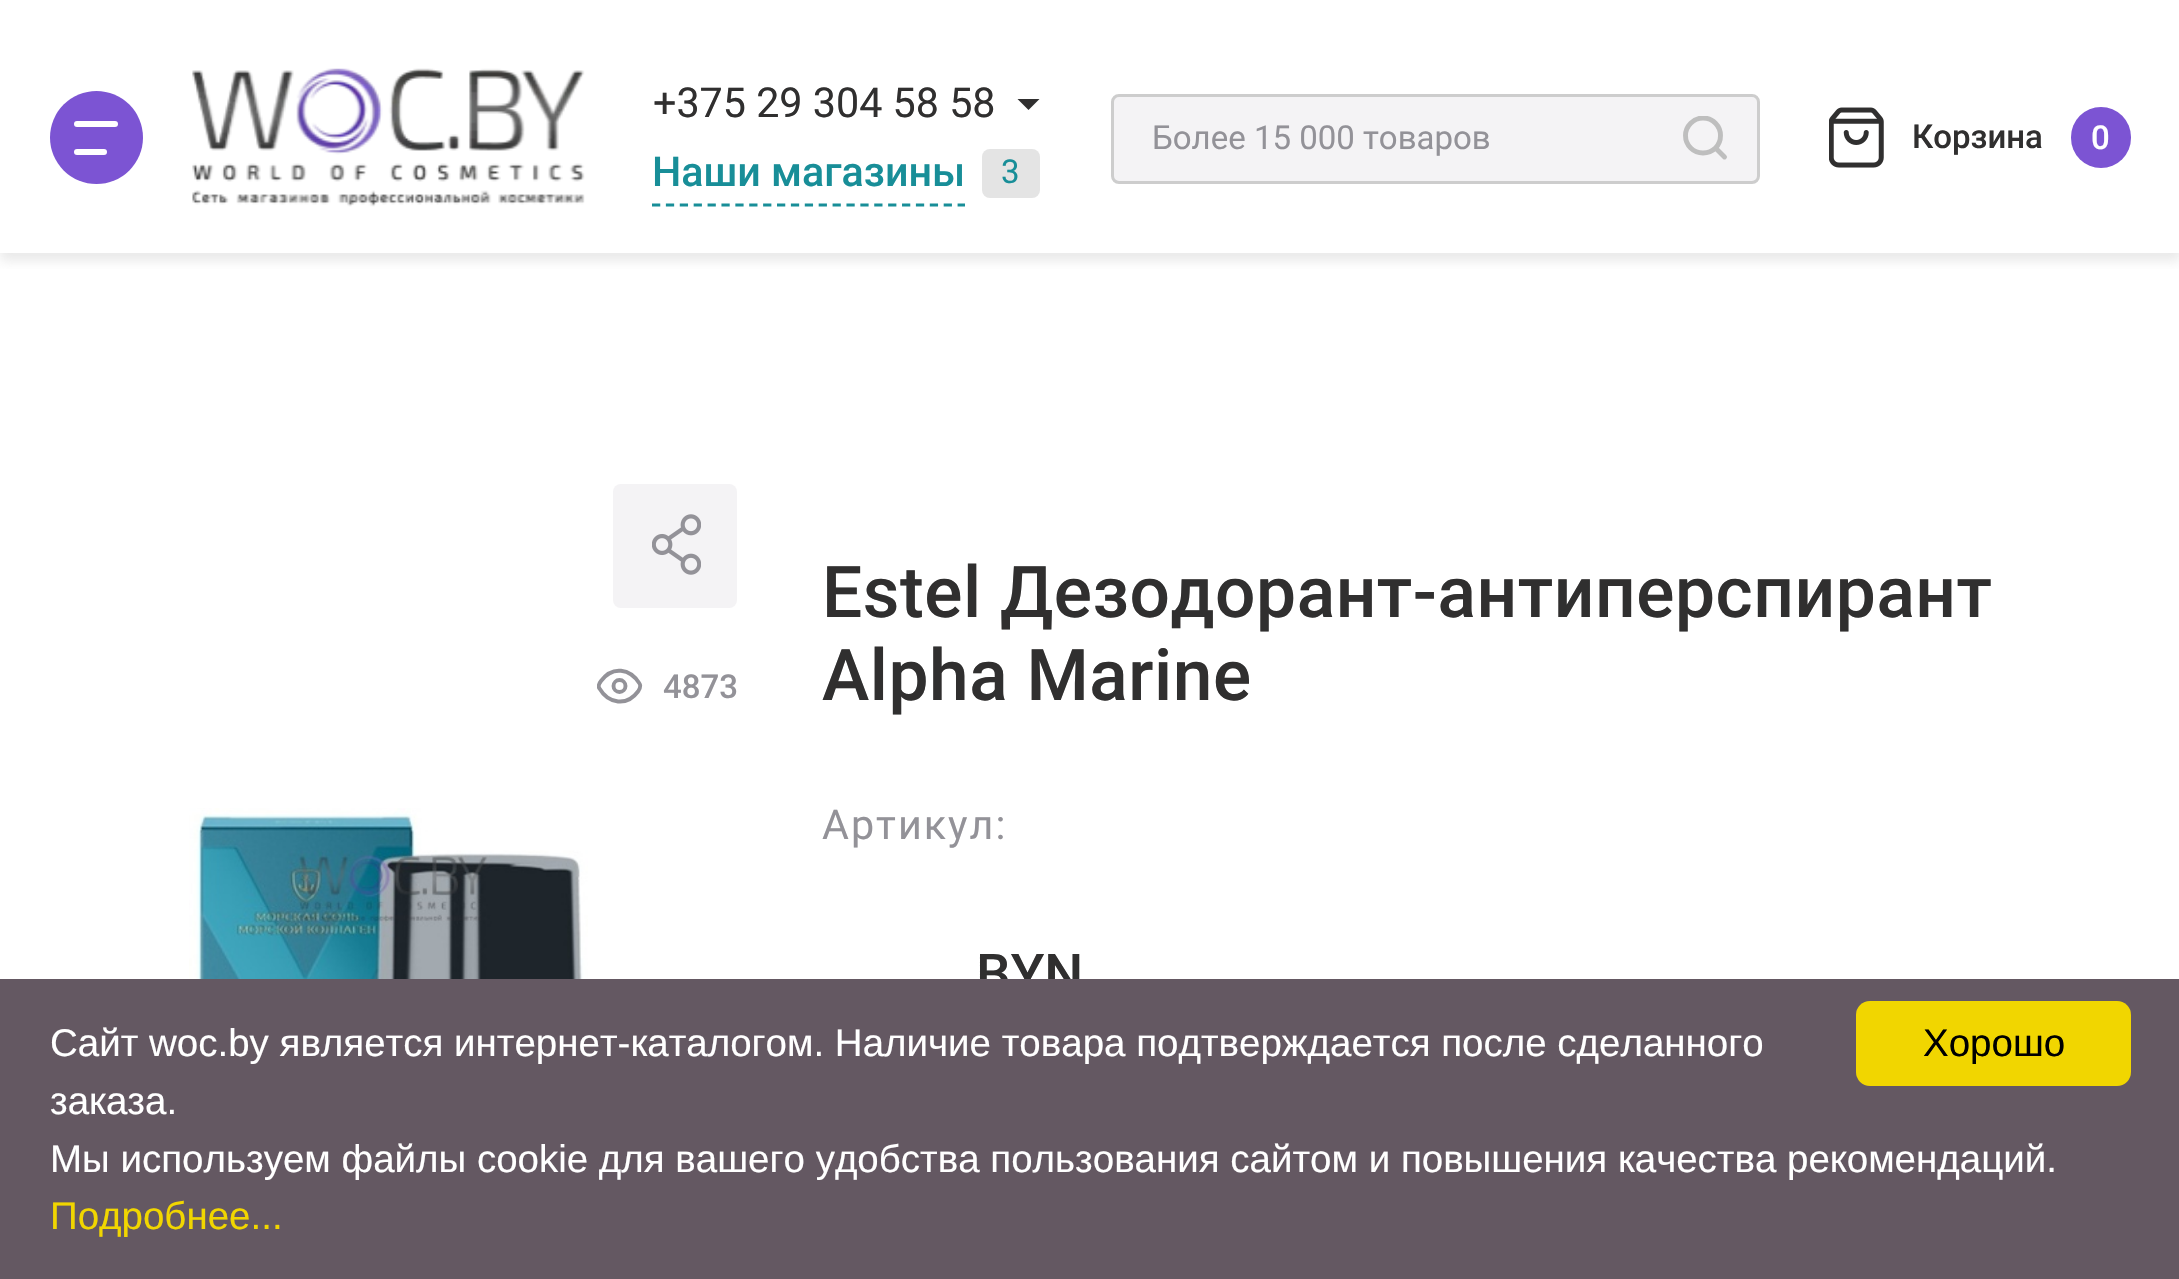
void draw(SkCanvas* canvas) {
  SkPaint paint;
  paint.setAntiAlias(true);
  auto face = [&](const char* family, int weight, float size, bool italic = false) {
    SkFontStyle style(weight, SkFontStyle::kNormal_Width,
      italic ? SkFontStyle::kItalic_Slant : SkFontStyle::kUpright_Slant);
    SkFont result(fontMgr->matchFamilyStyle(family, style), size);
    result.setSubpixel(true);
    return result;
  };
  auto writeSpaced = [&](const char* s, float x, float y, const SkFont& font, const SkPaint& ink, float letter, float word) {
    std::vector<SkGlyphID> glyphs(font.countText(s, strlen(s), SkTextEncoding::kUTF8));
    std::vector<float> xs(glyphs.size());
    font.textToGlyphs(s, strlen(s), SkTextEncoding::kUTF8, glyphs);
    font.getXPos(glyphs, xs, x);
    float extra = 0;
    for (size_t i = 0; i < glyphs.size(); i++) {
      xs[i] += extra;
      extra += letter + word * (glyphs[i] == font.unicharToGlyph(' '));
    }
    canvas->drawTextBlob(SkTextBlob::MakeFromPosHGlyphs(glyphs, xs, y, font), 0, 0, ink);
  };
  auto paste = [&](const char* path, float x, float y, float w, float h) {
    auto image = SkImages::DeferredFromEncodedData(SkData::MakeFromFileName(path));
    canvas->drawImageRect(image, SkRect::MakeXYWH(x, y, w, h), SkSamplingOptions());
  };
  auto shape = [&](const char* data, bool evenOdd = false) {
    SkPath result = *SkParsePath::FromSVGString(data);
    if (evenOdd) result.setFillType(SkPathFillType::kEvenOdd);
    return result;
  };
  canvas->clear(0xffffffff);
  canvas->save();
  canvas->clipRect(SkRect::MakeXYWH(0, 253, 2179, 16));
  paint.setColor(0x40a8a8a8);
  paint.setMaskFilter(SkMaskFilter::MakeBlur(kNormal_SkBlurStyle, 5.5f));
  canvas->drawRect(SkRect::MakeXYWH(0, 8, 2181, 253), paint);
  paint.setMaskFilter(nullptr);
  canvas->restore();
  paint.setColor(0xff7c54d3);
  canvas->drawCircle(96.5f, 137.5f, 46.5f, paint);
  paint.setColor(0xffffffff);
  canvas->drawRoundRect(SkRect::MakeXYWH(74, 121, 44, 6), 3, 3, paint);
  canvas->drawRoundRect(SkRect::MakeXYWH(74, 149, 33, 6), 3, 3, paint);
  paste("img/1.png", 192, 68, 393, 139);
  paint.setColor(0xff302f2f);
  canvas->drawPath(shape("M1017.5 99H1039.5L1028.5 110Z"), paint);
  paint.setStroke(true);
  paint.setStrokeWidth(2.8f);
  paint.setColor(0xff188e98);
  paint.setPathEffect(SkDashPathEffect::Make({{8.25f, 5.64f}}, 0));
  canvas->drawPath(shape("M652 205H965"), paint);
  paint.setPathEffect(nullptr);
  paint.setStroke(false);
  paint.setColor(0xffe4e4e4);
  canvas->drawRoundRect(SkRect::MakeXYWH(982, 149, 58, 49), 8, 8, paint);
  paint.setColor(0xfff4f3f5);
  canvas->drawRoundRect(SkRect::MakeXYWH(1112.5f, 95.5f, 646, 87), 6.5f, 6.5f, paint);
  paint.setStroke(true);
  paint.setStrokeWidth(3);
  paint.setColor(0xffcdcdcd);
  canvas->drawRoundRect(SkRect::MakeXYWH(1112.5f, 95.5f, 646, 87), 6.5f, 6.5f, paint);
  canvas->save();
  canvas->clipRect(SkRect::MakeXYWH(1683, 116, 44, 44));
  paint.setStrokeWidth(4.9f);
  paint.setStrokeCap(SkPaint::kRound_Cap);
  paint.setStrokeJoin(SkPaint::kRound_Join);
  paint.setColor(0xffbebebe);
  canvas->drawPath(shape("M1703 153C1713 153 1720.5 145.5 1720.5 135.5C1720.5 126 1713 118 1703 118C1693.5 118 1685.5 126 1685.5 135.5C1685.5 145.5 1693.5 153 1703 153Z"), paint);
  canvas->restore();
  canvas->drawPath(shape("M1724.5 157L1716.5 149"), paint);
  paste("img/2.png", 1829, 107, 55, 61);
  paint.setStroke(false);
  paint.setColor(0xff7c54d3);
  canvas->drawRoundRect(SkRect::MakeXYWH(2071, 107, 60, 61), 30, 30, paint);
  paint.setColor(0xfff4f3f5);
  canvas->drawRoundRect(SkRect::MakeXYWH(613, 484, 124, 124), 8, 8, paint);
  paste("img/3.png", 652, 514, 49, 61);
  canvas->save();
  canvas->clipRect(SkRect::MakeXYWH(597, 663, 47, 47));
  paint.setStroke(true);
  paint.setStrokeWidth(3.9f);
  paint.setStrokeCap(SkPaint::kButt_Cap);
  paint.setStrokeJoin(SkPaint::kMiter_Join);
  paint.setColor(0xff939298);
  canvas->drawPath(shape("M599.5 688.5C597.5 686 599.5 683 601 681C612.5 665.5 630 668.5 639.5 683.5C641.5 686.5 639.5 689 638 691.5C627 706.5 608.5 704 599.5 688.5Z"), paint);
  canvas->restore();
  canvas->drawCircle(619.5f, 686, 6, paint);
  paste("img/4.png", 189, 808, 399, 171);
  auto f0 = face("Roboto", 400, 41.25f);
  paint.setStroke(false);
  paint.setColor(0xff302f2f);
  canvas->drawString("+375 29 304 58 58", 653, 117, f0, paint);
  auto f1 = face("Roboto", 500, 41.25f);
  paint.setColor(0xff188e98);
  canvas->drawString("Наши магазины", 652, 186, f1, paint);
  auto f2 = face("Roboto", 400, 33);
  canvas->drawString("3", 1001, 183, f2, paint);
  paint.setColor(0xff939298);
  canvas->drawString("Более 15 000 товаров", 1152, 149, f2, paint);
  auto f3 = face("Roboto", 500, 33);
  paint.setColor(0xff302f2f);
  canvas->drawString("Корзина", 1912, 148, f3, paint);
  paint.setColor(0xffffffff);
  canvas->drawString("0", 2091, 149, f3, paint);
  paint.setColor(0xff939298);
  canvas->drawString("4873", 663, 698, f3, paint);
  auto f4 = face("Roboto", 500, 71.25f);
  paint.setColor(0xff302f2f);
  writeSpaced("Estel Дезодорант-антиперспирант", 822, 617, f4, paint, 0.55f, 0);
  writeSpaced("Alpha Marine", 822, 700, f4, paint, 0.55f, 0);
  paint.setColor(0xff939298);
  writeSpaced("Артикул:", 822, 839, f0, paint, 2, 0);
  auto f5 = face("Roboto", 500, 55);
  paint.setColor(0xff302f2f);
  canvas->drawString("BYN", 976, 993, f5, paint);
  paint.setColor(0xff645862);
  canvas->drawRect(SkRect::MakeXYWH(0, 979, 2179, 300), paint);
  auto f6 = face("Liberation Sans", 400, 38.5f);
  paint.setColor(0xffffffff);
  {
    const struct { const char* s; float x, y; } items[] = {
      {"Сайт woc.by является интернет-каталогом. Наличие товара подтверждается после сделанного", 50, 1056},
      {"заказа.", 50, 1114},
      {"Мы используем файлы cookie для вашего удобства пользования сайтом и повышения качества рекомендаций.", 50, 1172},
    };
    for (auto [s, x, y] : items) {
      canvas->drawString(s, x, y, f6, paint);
    }
  }
  paint.setColor(0xfff1d600);
  canvas->drawString("Подробнее...", 50, 1229, f6, paint);
  canvas->drawRoundRect(SkRect::MakeXYWH(1856, 1001, 275, 85), 14, 14, paint);
  paint.setColor(0xff000000);
  canvas->drawString("Хорошо", 1923, 1056, f6, paint);
}
